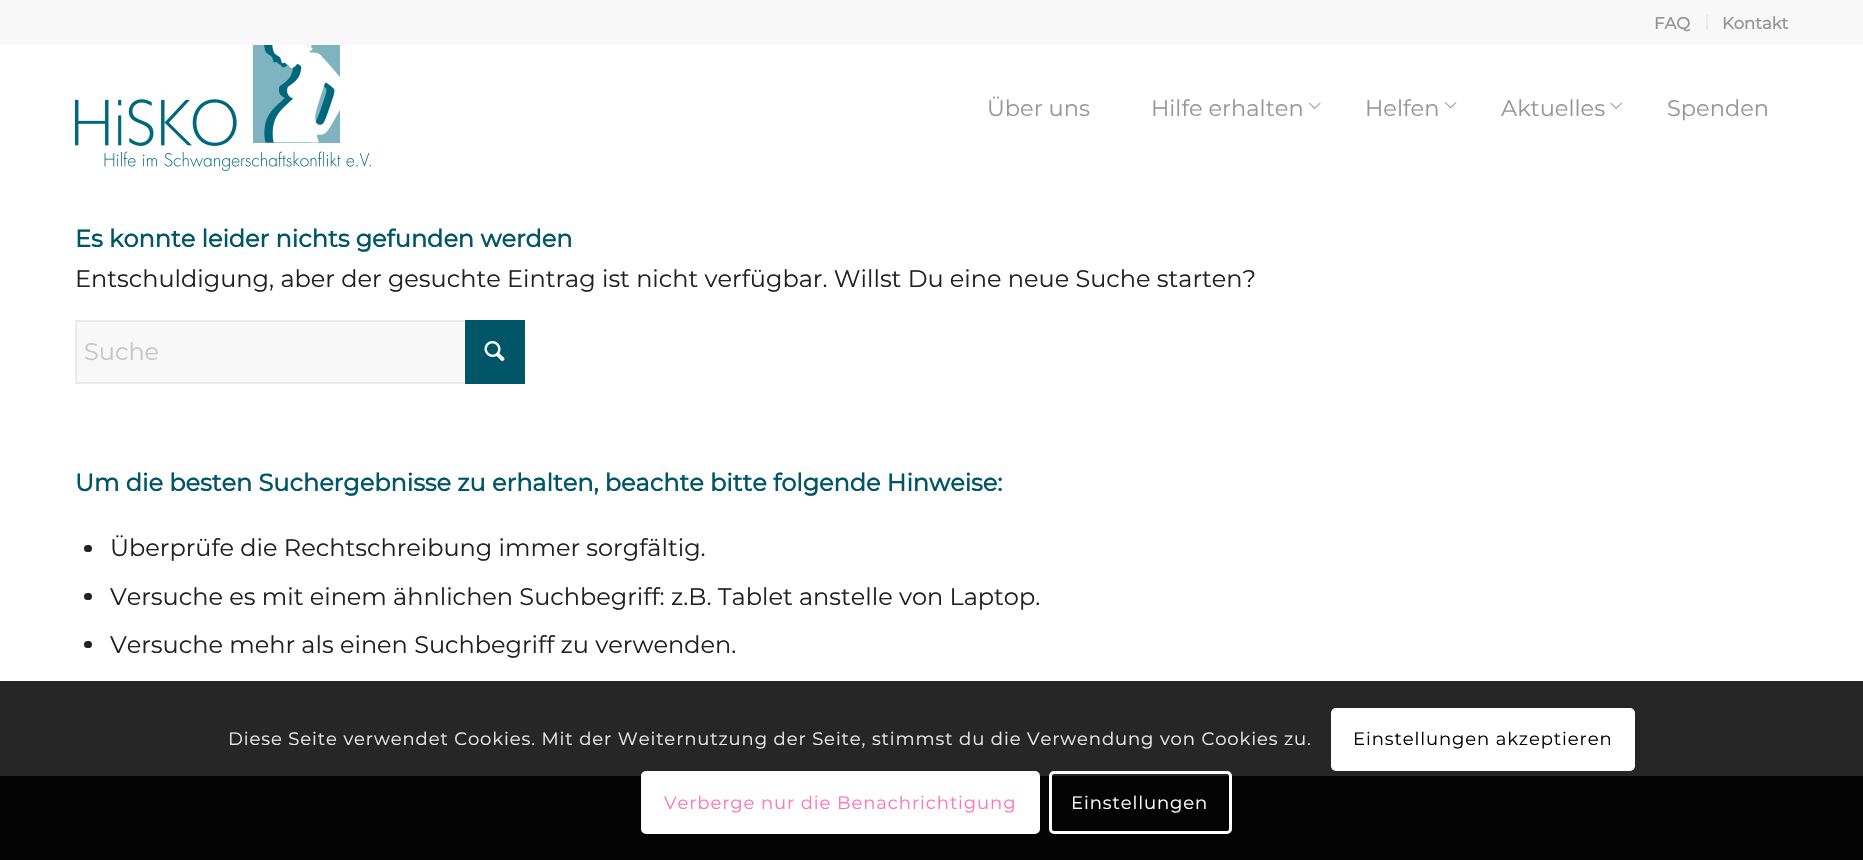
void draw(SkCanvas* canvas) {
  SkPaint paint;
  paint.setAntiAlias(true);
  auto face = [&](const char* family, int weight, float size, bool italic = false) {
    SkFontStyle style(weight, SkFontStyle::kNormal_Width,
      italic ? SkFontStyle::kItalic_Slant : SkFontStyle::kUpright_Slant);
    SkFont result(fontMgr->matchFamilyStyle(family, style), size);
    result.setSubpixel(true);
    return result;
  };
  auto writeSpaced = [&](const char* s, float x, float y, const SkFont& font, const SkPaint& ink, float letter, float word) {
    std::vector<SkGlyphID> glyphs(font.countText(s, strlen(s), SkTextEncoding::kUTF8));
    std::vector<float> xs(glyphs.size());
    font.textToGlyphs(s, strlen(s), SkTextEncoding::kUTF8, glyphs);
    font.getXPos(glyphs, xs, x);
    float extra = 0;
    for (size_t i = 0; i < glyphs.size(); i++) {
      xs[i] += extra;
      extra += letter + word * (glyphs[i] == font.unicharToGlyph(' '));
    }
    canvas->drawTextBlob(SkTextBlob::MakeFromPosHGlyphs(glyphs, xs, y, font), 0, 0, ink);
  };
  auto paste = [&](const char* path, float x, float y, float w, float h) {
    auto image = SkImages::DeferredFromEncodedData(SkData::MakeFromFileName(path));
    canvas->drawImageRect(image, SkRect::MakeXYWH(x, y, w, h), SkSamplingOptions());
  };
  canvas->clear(0xffffffff);
  {
    const struct { float x, y, w, h; SkColor color; } items[] = {
      {0, 681, 1863, 95, 0xff262626},
      {0, 0, 1863, 45, 0xfff8f8f8},
      {1706, 15, 2, 15, 0xffebebeb},
    };
    for (auto [x, y, w, h, color] : items) {
      paint.setColor(color);
      canvas->drawRect(SkRect::MakeXYWH(x, y, w, h), paint);
    }
  }
  paste("img/1.png", 75, 45, 296, 126);
  paste("img/2.png", 1309, 102, 12, 7);
  paste("img/3.png", 1444, 102, 13, 7);
  paste("img/4.png", 1610, 102, 12, 7);
  paint.setColor(0xfff8f8f8);
  canvas->drawRect(SkRect::MakeXYWH(77, 322, 388, 60), paint);
  paint.setStroke(true);
  paint.setStrokeWidth(2);
  paint.setColor(0xffebebeb);
  canvas->drawRect(SkRect::MakeXYWH(76, 321, 448, 62), paint);
  paint.setStroke(false);
  paint.setColor(0xff005566);
  canvas->drawRect(SkRect::MakeXYWH(465, 320, 60, 64), paint);
  paste("img/5.png", 484, 341, 21, 21);
  paint.setColor(0xff212123);
  canvas->drawRoundRect(SkRect::MakeXYWH(84, 545, 8, 7), 3.5f, 3.5f, paint);
  canvas->drawRoundRect(SkRect::MakeXYWH(84, 593, 8, 7), 3.5f, 3.5f, paint);
  canvas->drawRoundRect(SkRect::MakeXYWH(84, 641, 8, 7), 3.5f, 3.5f, paint);
  paint.setColor(0xff030303);
  canvas->drawRect(SkRect::MakeXYWH(0, 776, 1863, 84), paint);
  paint.setColor(0xffffffff);
  canvas->drawRoundRect(SkRect::MakeXYWH(1331, 708, 304, 63), 5, 5, paint);
  canvas->drawRoundRect(SkRect::MakeXYWH(642.5f, 772.5f, 396, 60), 3.5f, 3.5f, paint);
  paint.setStroke(true);
  paint.setStrokeWidth(3);
  canvas->drawRoundRect(SkRect::MakeXYWH(642.5f, 772.5f, 396, 60), 3.5f, 3.5f, paint);
  canvas->drawRoundRect(SkRect::MakeXYWH(1050.5f, 772.5f, 180, 60), 3.5f, 3.5f, paint);
  auto f0 = face("Montserrat", 700, 16.5f);
  paint.setStroke(false);
  paint.setColor(0xff969696);
  canvas->drawString("FAQ", 1654, 29, f0, paint);
  canvas->drawString("Kontakt", 1722, 29, f0, paint);
  auto f1 = face("Montserrat", 100, 22.5f);
  {
    const struct { const char* s; float x, y; } items[] = {
      {"Über uns", 987, 116},
      {"Hilfe erhalten", 1151, 116},
      {"Helfen", 1365, 116},
      {"Aktuelles", 1501, 116},
      {"Spenden", 1667, 116},
    };
    for (auto [s, x, y] : items) {
      canvas->drawString(s, x, y, f1, paint);
    }
  }
  auto f2 = face("Montserrat", 700, 24);
  paint.setColor(0xff005566);
  canvas->drawString("Es konnte leider nichts gefunden werden", 75, 247, f2, paint);
  auto f3 = face("Montserrat", 100, 24);
  paint.setColor(0xff212123);
  canvas->drawString("Entschuldigung, aber der gesuchte Eintrag ist nicht verfügbar. Willst Du eine neue Suche starten?", 75, 287, f3, paint);
  paint.setColor(0xffc7c7c7);
  canvas->drawString("Suche", 84, 360, f3, paint);
  paint.setColor(0xff005566);
  canvas->drawString("Um die besten Suchergebnisse zu erhalten, beachte bitte folgende Hinweise:", 75, 491, f2, paint);
  paint.setColor(0xff212123);
  {
    const struct { const char* s; float x, y; } items[] = {
      {"Überprüfe die Rechtschreibung immer sorgfältig.", 110, 556},
      {"Versuche es mit einem ähnlichen Suchbegriff: z.B. Tablet anstelle von Laptop.", 110, 605},
      {"Versuche mehr als einen Suchbegriff zu verwenden.", 110, 653},
    };
    for (auto [s, x, y] : items) {
      canvas->drawString(s, x, y, f3, paint);
    }
  }
  auto f4 = face("Montserrat", 100, 18);
  paint.setColor(0xffe9e9e9);
  writeSpaced("Diese Seite verwendet Cookies. Mit der Weiternutzung der Seite, stimmst du die Verwendung von Cookies zu.", 228, 745, f4, paint, 0.9f, 0);
  paint.setColor(0xff000000);
  writeSpaced("Einstellungen akzeptieren", 1353, 745, f4, paint, 0.9f, 0);
  paint.setColor(0xffff75b5);
  writeSpaced("Verberge nur die Benachrichtigung", 664, 809, f4, paint, 0.9f, 0);
  paint.setColor(0xffffffff);
  writeSpaced("Einstellungen", 1071, 809, f4, paint, 0.9f, 0);
}
